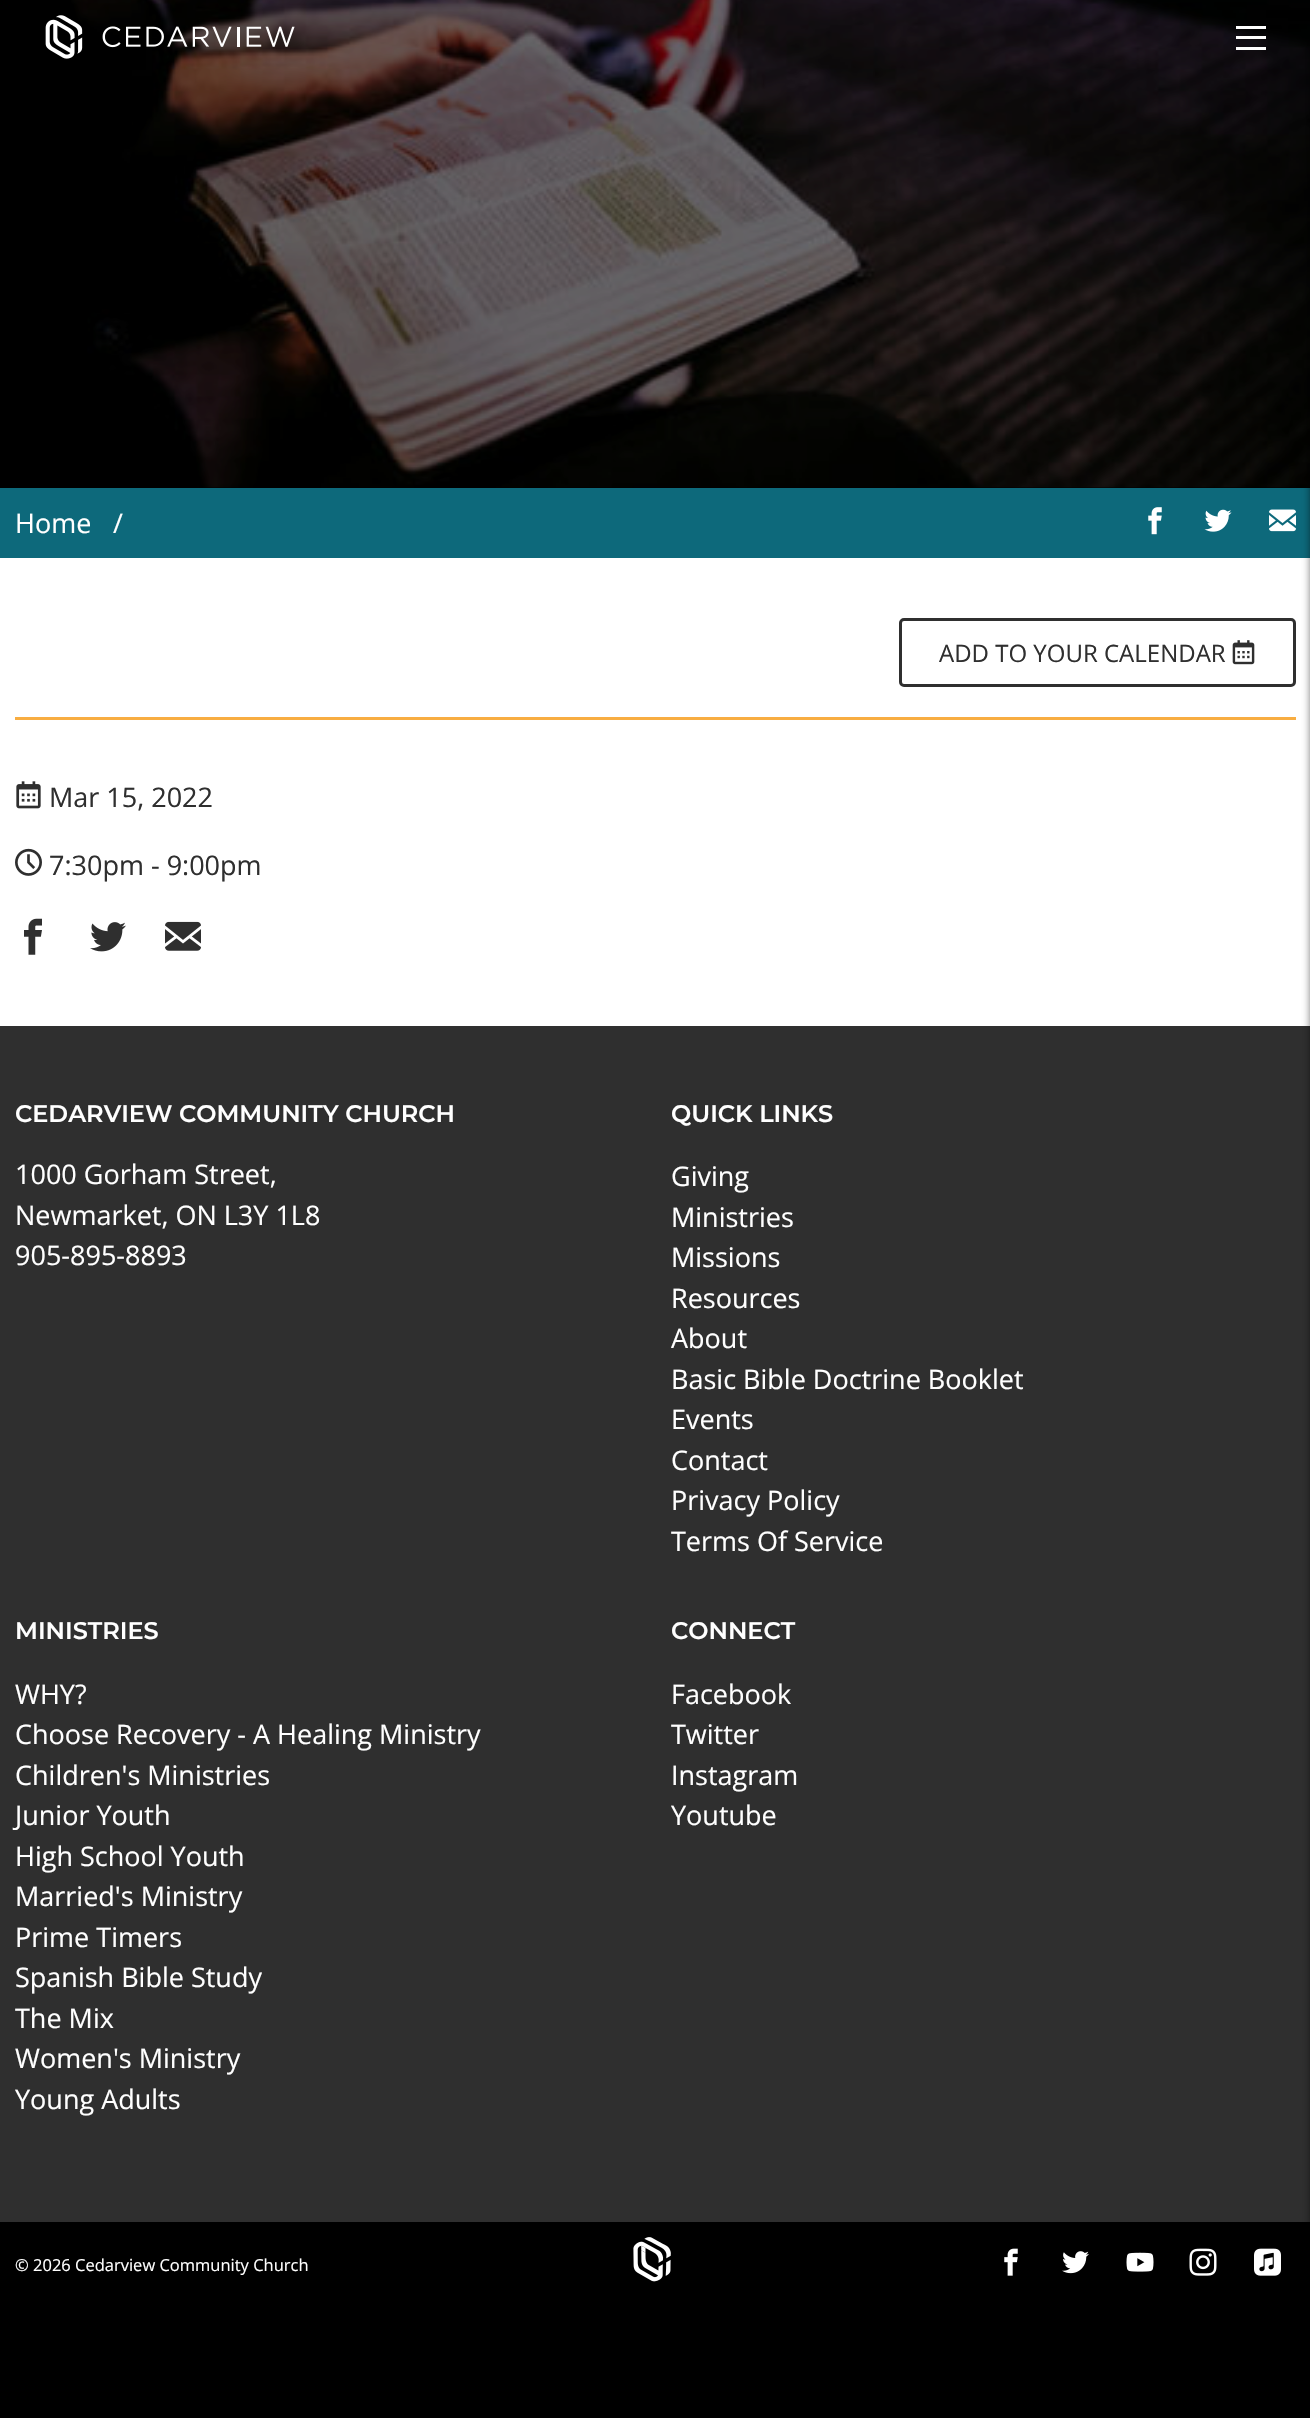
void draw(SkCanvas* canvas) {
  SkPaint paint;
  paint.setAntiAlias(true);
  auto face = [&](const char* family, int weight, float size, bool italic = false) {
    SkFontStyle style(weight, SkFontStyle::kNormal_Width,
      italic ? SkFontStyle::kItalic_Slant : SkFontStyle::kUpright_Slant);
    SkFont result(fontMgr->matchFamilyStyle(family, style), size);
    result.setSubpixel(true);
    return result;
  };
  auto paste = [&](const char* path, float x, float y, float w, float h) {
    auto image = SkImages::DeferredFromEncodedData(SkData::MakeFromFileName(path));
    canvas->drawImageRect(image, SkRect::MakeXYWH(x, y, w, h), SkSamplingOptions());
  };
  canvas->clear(0xff000000);
  paste("img/2.png", 71, 0, 1239, 488);
  paste("img/1.png", 45, 15, 250, 44);
  {
    const struct { float x, y, w, h; SkColor color; } items[] = {
      {1236, 26, 30, 3, 0xffffffff},
      {1236, 36, 30, 3, 0xffffffff},
      {1236, 47, 30, 3, 0xffffffff},
      {0, 488, 1310, 70, 0xff0d697b},
      {0, 558, 1310, 468, 0xffffffff},
      {0, 1026, 1310, 1196, 0xff2f2f2f},
    };
    for (auto [x, y, w, h, color] : items) {
      paint.setColor(color);
      canvas->drawRect(SkRect::MakeXYWH(x, y, w, h), paint);
    }
  }
  paint.setColor(0xa3000000);
  paint.setMaskFilter(SkMaskFilter::MakeBlur(kNormal_SkBlurStyle, 4));
  canvas->drawRect(SkRect::MakeXYWH(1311, 0, 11, 2418), paint);
  paint.setMaskFilter(nullptr);
  paste("img/3.png", 1148, 507, 14, 28);
  paste("img/4.png", 1204, 509, 28, 23);
  paste("img/5.png", 1269, 509, 27, 23);
  paint.setStroke(true);
  paint.setStrokeWidth(3);
  paint.setColor(0xff2f2f2f);
  canvas->drawRoundRect(SkRect::MakeXYWH(900.5f, 619.5f, 394, 66), 3.5f, 3.5f, paint);
  paste("img/6.png", 1232, 640, 23, 25);
  paint.setStroke(false);
  paint.setColor(0xfff8ad41);
  canvas->drawRect(SkRect::MakeXYWH(15, 717, 1281, 3), paint);
  paste("img/7.png", 16, 781, 25, 28);
  paste("img/8.png", 15, 848, 27, 28);
  paste("img/9.png", 24, 918, 18, 37);
  paste("img/10.png", 90, 922, 36, 30);
  paste("img/11.png", 165, 921, 36, 30);
  paste("img/12.png", 633, 2237, 38, 45);
  paste("img/13.png", 1004, 2248, 14, 28);
  paste("img/14.png", 1062, 2251, 27, 23);
  paste("img/15.png", 1126, 2252, 28, 20);
  paste("img/16.png", 1189, 2248, 28, 28);
  paste("img/17.png", 1254, 2248, 27, 28);
  auto f0 = face("Open Sans", 400, 27);
  paint.setColor(0xffffffff);
  canvas->drawString("Home", 15, 533, f0, paint);
  canvas->drawString("/", 113, 533, f0, paint);
  auto f1 = face("Open Sans", 400, 24);
  paint.setColor(0xff2f2f2f);
  canvas->drawString("ADD TO YOUR CALENDAR", 939, 662, f1, paint);
  canvas->drawString("Mar 15, 2022", 49, 807, f0, paint);
  canvas->drawString("7:30pm - 9:00pm", 49, 875, f0, paint);
  auto f2 = face("Montserrat", 600, 24);
  paint.setColor(0xffffffff);
  canvas->drawString("CEDARVIEW COMMUNITY CHURCH", 15, 1122, f2, paint);
  {
    const struct { const char* s; float x, y; } items[] = {
      {"1000 Gorham Street,", 15, 1184},
      {"Newmarket, ON L3Y 1L8", 15, 1225},
      {"905-895-8893", 15, 1265},
    };
    for (auto [s, x, y] : items) {
      canvas->drawString(s, x, y, f0, paint);
    }
  }
  canvas->drawString("QUICK LINKS", 671, 1122, f2, paint);
  {
    const struct { const char* s; float x, y; } items[] = {
      {"Giving", 671, 1186},
      {"Ministries", 671, 1227},
      {"Missions", 671, 1267},
      {"Resources", 671, 1308},
      {"About", 671, 1348},
      {"Basic Bible Doctrine Booklet", 671, 1389},
      {"Events", 671, 1429},
      {"Contact", 671, 1470},
      {"Privacy Policy", 671, 1510},
      {"Terms Of Service", 671, 1551},
    };
    for (auto [s, x, y] : items) {
      canvas->drawString(s, x, y, f0, paint);
    }
  }
  canvas->drawString("MINISTRIES", 15, 1639, f2, paint);
  {
    const struct { const char* s; float x, y; } items[] = {
      {"WHY?", 15, 1704},
      {"Choose Recovery - A Healing Ministry", 15, 1744},
      {"Children's Ministries", 15, 1785},
      {"Junior Youth", 15, 1825},
      {"High School Youth", 15, 1866},
      {"Married's Ministry", 15, 1906},
      {"Prime Timers", 15, 1947},
      {"Spanish Bible Study", 15, 1987},
      {"The Mix", 15, 2028},
      {"Women's Ministry", 15, 2068},
      {"Young Adults", 15, 2109},
    };
    for (auto [s, x, y] : items) {
      canvas->drawString(s, x, y, f0, paint);
    }
  }
  canvas->drawString("CONNECT", 671, 1639, f2, paint);
  {
    const struct { const char* s; float x, y; } items[] = {
      {"Facebook", 671, 1704},
      {"Twitter", 671, 1744},
      {"Instagram", 671, 1785},
      {"Youtube", 671, 1825},
    };
    for (auto [s, x, y] : items) {
      canvas->drawString(s, x, y, f0, paint);
    }
  }
  auto f3 = face("Open Sans", 400, 16.5f);
  canvas->drawString("© 2026 Cedarview Community Church", 15, 2271, f3, paint);
}
